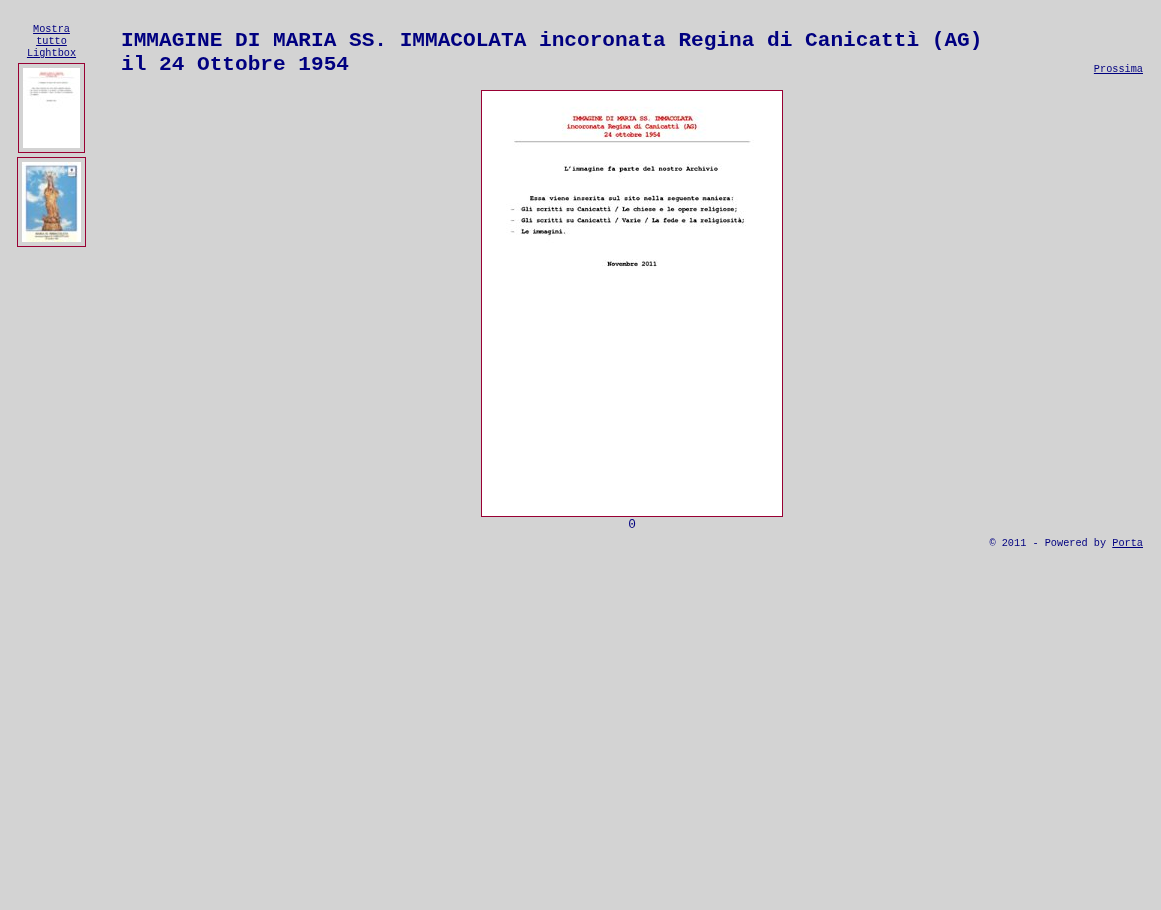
void draw(SkCanvas* canvas) {
  SkPaint paint;
  paint.setAntiAlias(true);
  auto paste = [&](const char* path, float x, float y, float w, float h) {
    auto image = SkImages::DeferredFromEncodedData(SkData::MakeFromFileName(path));
    canvas->drawImageRect(image, SkRect::MakeXYWH(x, y, w, h), SkSamplingOptions());
  };
  canvas->clear(0xffd3d3d3);
  paste("img/1.png", 17, 25, 69, 222);
  paste("img/2.png", 122, 31, 1021, 517);
}
